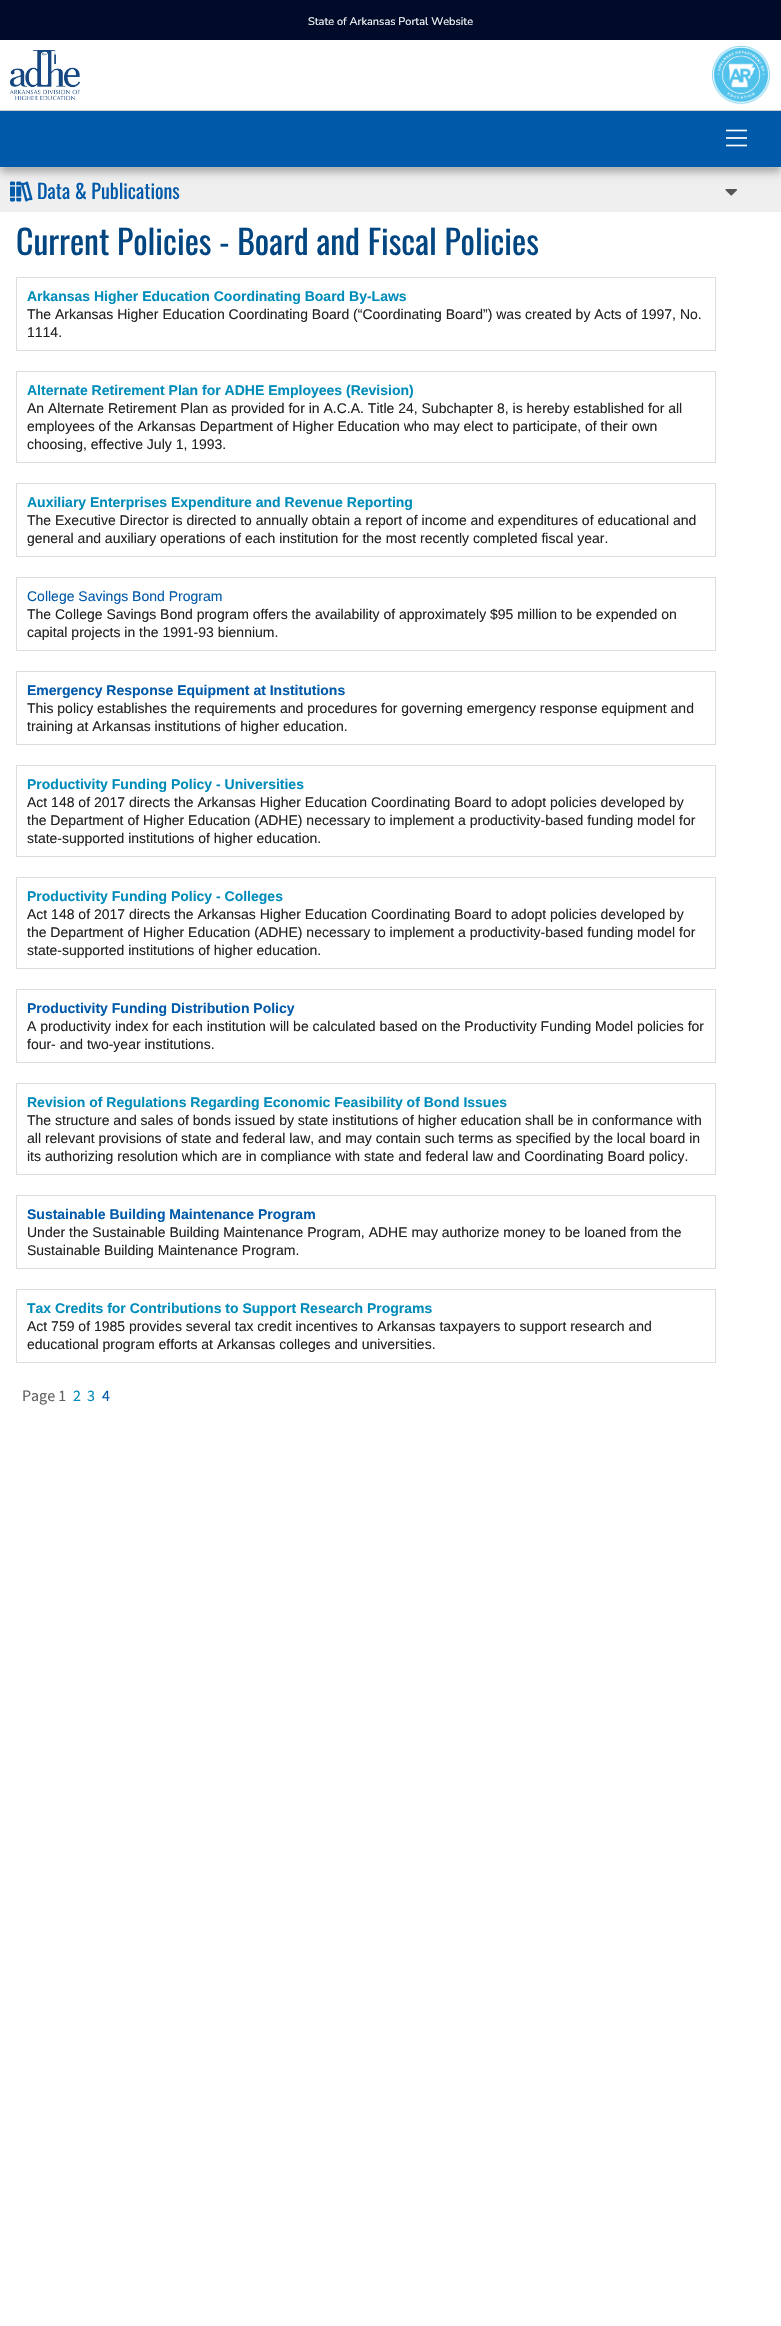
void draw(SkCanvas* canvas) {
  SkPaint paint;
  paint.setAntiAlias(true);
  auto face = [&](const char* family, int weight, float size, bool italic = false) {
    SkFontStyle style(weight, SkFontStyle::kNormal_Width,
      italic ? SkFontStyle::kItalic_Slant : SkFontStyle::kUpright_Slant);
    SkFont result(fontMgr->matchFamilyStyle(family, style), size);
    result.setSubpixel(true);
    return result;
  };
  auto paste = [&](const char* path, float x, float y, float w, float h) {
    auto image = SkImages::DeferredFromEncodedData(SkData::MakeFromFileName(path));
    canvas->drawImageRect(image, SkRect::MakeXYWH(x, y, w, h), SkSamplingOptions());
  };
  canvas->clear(0xfffafafa);
  paint.setColor(0xffefefef);
  canvas->drawRect(SkRect::MakeXYWH(0, 168, 781, 44), paint);
  paste("img/4.png", 10, 181, 23, 21);
  paint.setColor(0x4d000000);
  paint.setMaskFilter(SkMaskFilter::MakeBlur(kNormal_SkBlurStyle, 4));
  canvas->drawRect(SkRect::MakeXYWH(0, 5, 781, 167), paint);
  paint.setMaskFilter(nullptr);
  {
    const struct { float x, y, w, h; SkColor color; } items[] = {
      {0, 40, 781, 70, 0xffffffff},
      {0, 0, 781, 40, 0xff000b2a},
      {0, 110, 781, 1, 0xffcccccc},
    };
    for (auto [x, y, w, h, color] : items) {
      paint.setColor(color);
      canvas->drawRect(SkRect::MakeXYWH(x, y, w, h), paint);
    }
  }
  paste("img/1.png", 10, 50, 70, 50);
  paste("img/2.png", 712, 45, 59, 60);
  paint.setColor(0xff0159a9);
  canvas->drawRect(SkRect::MakeXYWH(0, 111, 781, 56), paint);
  paste("img/3.png", 726, 129, 21, 18);
  paint.setColor(0xffffffff);
  canvas->drawRect(SkRect::MakeXYWH(0, 212, 781, 2114), paint);
  paste("img/5.png", 725, 189, 12, 7);
  {
    const struct { float x, y, w, h; SkColor color; } items[] = {
      {16, 277, 700, 1, 0xffdddddd},
      {715, 277, 1, 74, 0xffdddddd},
      {16, 350, 700, 1, 0xffdddddd},
      {16, 277, 1, 74, 0xffdddddd},
      {16, 371, 700, 1, 0xffdddddd},
      {715, 371, 1, 92, 0xffdddddd},
      {16, 462, 700, 1, 0xffdddddd},
      {16, 371, 1, 92, 0xffdddddd},
      {16, 483, 700, 1, 0xffdddddd},
      {715, 483, 1, 74, 0xffdddddd},
      {16, 556, 700, 1, 0xffdddddd},
      {16, 483, 1, 74, 0xffdddddd},
      {16, 577, 700, 1, 0xffdddddd},
      {715, 577, 1, 74, 0xffdddddd},
      {16, 650, 700, 1, 0xffdddddd},
      {16, 577, 1, 74, 0xffdddddd},
      {16, 671, 700, 1, 0xffdddddd},
      {715, 671, 1, 74, 0xffdddddd},
      {16, 744, 700, 1, 0xffdddddd},
      {16, 671, 1, 74, 0xffdddddd},
      {16, 765, 700, 1, 0xffdddddd},
      {715, 765, 1, 92, 0xffdddddd},
      {16, 856, 700, 1, 0xffdddddd},
      {16, 765, 1, 92, 0xffdddddd},
      {16, 877, 700, 1, 0xffdddddd},
      {715, 877, 1, 92, 0xffdddddd},
      {16, 968, 700, 1, 0xffdddddd},
      {16, 877, 1, 92, 0xffdddddd},
      {16, 989, 700, 1, 0xffdddddd},
      {715, 989, 1, 74, 0xffdddddd},
      {16, 1062, 700, 1, 0xffdddddd},
      {16, 989, 1, 74, 0xffdddddd},
      {16, 1083, 700, 1, 0xffdddddd},
      {715, 1083, 1, 92, 0xffdddddd},
      {16, 1174, 700, 1, 0xffdddddd},
      {16, 1083, 1, 92, 0xffdddddd},
      {16, 1195, 700, 1, 0xffdddddd},
      {715, 1195, 1, 74, 0xffdddddd},
      {16, 1268, 700, 1, 0xffdddddd},
      {16, 1195, 1, 74, 0xffdddddd},
      {16, 1289, 700, 1, 0xffdddddd},
      {715, 1289, 1, 74, 0xffdddddd},
      {16, 1362, 700, 1, 0xffdddddd},
      {16, 1289, 1, 74, 0xffdddddd},
    };
    for (auto [x, y, w, h, color] : items) {
      paint.setColor(color);
      canvas->drawRect(SkRect::MakeXYWH(x, y, w, h), paint);
    }
  }
  auto f0 = face("Nunito Sans", 400, 11);
  paint.setColor(0xffffffff);
  canvas->drawString("State of Arkansas Portal Website", 308, 25, f0, paint);
  auto f1 = face("Oswald", 400, 20);
  paint.setColor(0xff0159a9);
  canvas->drawString("Data & Publications", 37, 199, f1, paint);
  auto f2 = face("Oswald", 400, 33.75f);
  paint.setColor(0xff014581);
  canvas->drawString("Current Policies - Board and Fiscal Policies", 16, 255, f2, paint);
  auto f3 = face("Liberation Sans", 700, 14);
  paint.setColor(0xff008cba);
  canvas->drawString("Arkansas Higher Education Coordinating Board By-Laws", 27, 301, f3, paint);
  auto f4 = face("Liberation Sans", 400, 14);
  paint.setColor(0xff222222);
  canvas->drawString("The Arkansas Higher Education Coordinating Board (“Coordinating Board”) was created by Acts of 1997, No.", 27, 319, f4, paint);
  canvas->drawString("1114.", 27, 337, f4, paint);
  paint.setColor(0xff008cba);
  canvas->drawString("Alternate Retirement Plan for ADHE Employees (Revision)", 27, 395, f3, paint);
  paint.setColor(0xff222222);
  {
    const struct { const char* s; float x, y; } items[] = {
      {"An Alternate Retirement Plan as provided for in A.C.A. Title 24, Subchapter 8, is hereby established for all", 27, 413},
      {"employees of the Arkansas Department of Higher Education who may elect to participate, of their own", 27, 431},
      {"choosing, effective July 1, 1993.", 27, 449},
    };
    for (auto [s, x, y] : items) {
      canvas->drawString(s, x, y, f4, paint);
    }
  }
  paint.setColor(0xff008cba);
  canvas->drawString("Auxiliary Enterprises Expenditure and Revenue Reporting", 27, 507, f3, paint);
  paint.setColor(0xff222222);
  canvas->drawString("The Executive Director is directed to annually obtain a report of income and expenditures of educational and", 27, 525, f4, paint);
  canvas->drawString("general and auxiliary operations of each institution for the most recently completed fiscal year.", 27, 543, f4, paint);
  paint.setColor(0xff0159a9);
  canvas->drawString("College Savings Bond Program", 27, 601, f4, paint);
  paint.setColor(0xff222222);
  canvas->drawString("The College Savings Bond program offers the availability of approximately $95 million to be expended on", 27, 619, f4, paint);
  canvas->drawString("capital projects in the 1991-93 biennium.", 27, 637, f4, paint);
  paint.setColor(0xff0159a9);
  canvas->drawString("Emergency Response Equipment at Institutions", 27, 695, f3, paint);
  paint.setColor(0xff222222);
  canvas->drawString("This policy establishes the requirements and procedures for governing emergency response equipment and", 27, 713, f4, paint);
  canvas->drawString("training at Arkansas institutions of higher education.", 27, 731, f4, paint);
  paint.setColor(0xff008cba);
  canvas->drawString("Productivity Funding Policy - Universities", 27, 789, f3, paint);
  paint.setColor(0xff222222);
  {
    const struct { const char* s; float x, y; } items[] = {
      {"Act 148 of 2017 directs the Arkansas Higher Education Coordinating Board to adopt policies developed by", 27, 807},
      {"the Department of Higher Education (ADHE) necessary to implement a productivity-based funding model for", 27, 825},
      {"state-supported institutions of higher education.", 27, 843},
    };
    for (auto [s, x, y] : items) {
      canvas->drawString(s, x, y, f4, paint);
    }
  }
  paint.setColor(0xff008cba);
  canvas->drawString("Productivity Funding Policy - Colleges", 27, 901, f3, paint);
  paint.setColor(0xff222222);
  {
    const struct { const char* s; float x, y; } items[] = {
      {"Act 148 of 2017 directs the Arkansas Higher Education Coordinating Board to adopt policies developed by", 27, 919},
      {"the Department of Higher Education (ADHE) necessary to implement a productivity-based funding model for", 27, 937},
      {"state-supported institutions of higher education.", 27, 955},
    };
    for (auto [s, x, y] : items) {
      canvas->drawString(s, x, y, f4, paint);
    }
  }
  paint.setColor(0xff0159a9);
  canvas->drawString("Productivity Funding Distribution Policy", 27, 1013, f3, paint);
  paint.setColor(0xff222222);
  canvas->drawString("A productivity index for each institution will be calculated based on the Productivity Funding Model policies for", 27, 1031, f4, paint);
  canvas->drawString("four- and two-year institutions.", 27, 1049, f4, paint);
  paint.setColor(0xff008cba);
  canvas->drawString("Revision of Regulations Regarding Economic Feasibility of Bond Issues", 27, 1107, f3, paint);
  paint.setColor(0xff222222);
  {
    const struct { const char* s; float x, y; } items[] = {
      {"The structure and sales of bonds issued by state institutions of higher education shall be in conformance with", 27, 1125},
      {"all relevant provisions of state and federal law, and may contain such terms as specified by the local board in", 27, 1143},
      {"its authorizing resolution which are in compliance with state and federal law and Coordinating Board policy.", 27, 1161},
    };
    for (auto [s, x, y] : items) {
      canvas->drawString(s, x, y, f4, paint);
    }
  }
  paint.setColor(0xff0159a9);
  canvas->drawString("Sustainable Building Maintenance Program", 27, 1219, f3, paint);
  paint.setColor(0xff222222);
  canvas->drawString("Under the Sustainable Building Maintenance Program, ADHE may authorize money to be loaned from the", 27, 1237, f4, paint);
  canvas->drawString("Sustainable Building Maintenance Program.", 27, 1255, f4, paint);
  paint.setColor(0xff008cba);
  canvas->drawString("Tax Credits for Contributions to Support Research Programs", 27, 1313, f3, paint);
  paint.setColor(0xff222222);
  canvas->drawString("Act 759 of 1985 provides several tax credit incentives to Arkansas taxpayers to support research and", 27, 1331, f4, paint);
  canvas->drawString("educational program efforts at Arkansas colleges and universities.", 27, 1349, f4, paint);
  auto f5 = face("Source Sans Pro", 400, 16);
  paint.setColor(0xff616161);
  canvas->drawString("Page 1", 22, 1401, f5, paint);
  paint.setColor(0xff008cba);
  canvas->drawString("2", 73, 1401, f5, paint);
  canvas->drawString("3", 87, 1401, f5, paint);
  paint.setColor(0xff0159a9);
  canvas->drawString("4", 102, 1401, f5, paint);
}
